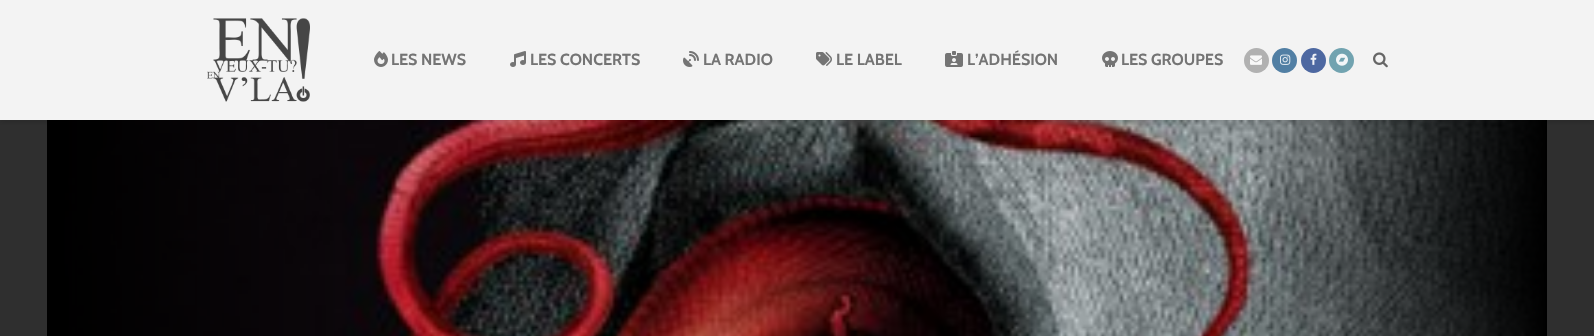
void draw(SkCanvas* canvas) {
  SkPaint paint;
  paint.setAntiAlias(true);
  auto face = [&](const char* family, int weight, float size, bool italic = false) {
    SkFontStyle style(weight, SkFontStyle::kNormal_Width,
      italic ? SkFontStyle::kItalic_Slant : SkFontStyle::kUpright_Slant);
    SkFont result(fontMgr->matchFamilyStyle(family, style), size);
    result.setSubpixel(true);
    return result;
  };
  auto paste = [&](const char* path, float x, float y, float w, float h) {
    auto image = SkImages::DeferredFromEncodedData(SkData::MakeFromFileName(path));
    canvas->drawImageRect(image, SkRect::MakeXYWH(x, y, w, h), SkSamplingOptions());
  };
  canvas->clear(0xfff3f3f3);
  paint.setColor(0xff2f2f2f);
  canvas->drawRect(SkRect::MakeXYWH(0, 120, 1594, 216), paint);
  paste("img/13.png", 47, 120, 1500, 216);
  canvas->save();
  canvas->clipRect(SkRect::MakeXYWH(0, 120, 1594, 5));
  paint.setColor(0x1a000101);
  paint.setMaskFilter(SkMaskFilter::MakeBlur(kNormal_SkBlurStyle, 2.5f));
  canvas->drawRect(SkRect::MakeXYWH(0, 3, 1594, 120), paint);
  paint.setMaskFilter(nullptr);
  canvas->restore();
  paste("img/1.png", 207, 18, 103, 84);
  paste("img/2.png", 374, 51, 14, 16);
  paste("img/3.png", 510, 51, 16, 16);
  paste("img/4.png", 683, 51, 16, 16);
  paste("img/5.png", 816, 52, 16, 14);
  paste("img/6.png", 945, 51, 18, 16);
  paste("img/7.png", 1102, 51, 16, 16);
  paint.setColor(0xffb1b1b1);
  canvas->drawCircle(1256.5f, 60.5f, 12.5f, paint);
  paste("img/8.png", 1250, 55, 12, 10);
  paint.setColor(0xff517fa4);
  canvas->drawCircle(1284.5f, 60.5f, 12.5f, paint);
  paste("img/9.png", 1280, 54, 11, 11);
  paint.setColor(0xff4d68a1);
  canvas->drawCircle(1313.5f, 60.5f, 12.5f, paint);
  paste("img/10.png", 1310, 53, 7, 12);
  paint.setColor(0xff71a3b0);
  canvas->drawCircle(1341.5f, 60.5f, 12.5f, paint);
  paste("img/11.png", 1336, 53, 12, 13);
  paste("img/12.png", 1373, 52, 15, 16);
  auto f0 = face("Cabin", 700, 16);
  paint.setColor(0xff747474);
  {
    const struct { const char* s; float x, y; } items[] = {
      {"LES NEWS", 391, 65},
      {"LES CONCERTS", 530, 65},
      {"LA RADIO", 703, 65},
      {"LE LABEL", 836, 65},
      {"L’ADHÉSION", 967, 65},
      {"LES GROUPES", 1121, 65},
    };
    for (auto [s, x, y] : items) {
      canvas->drawString(s, x, y, f0, paint);
    }
  }
}
